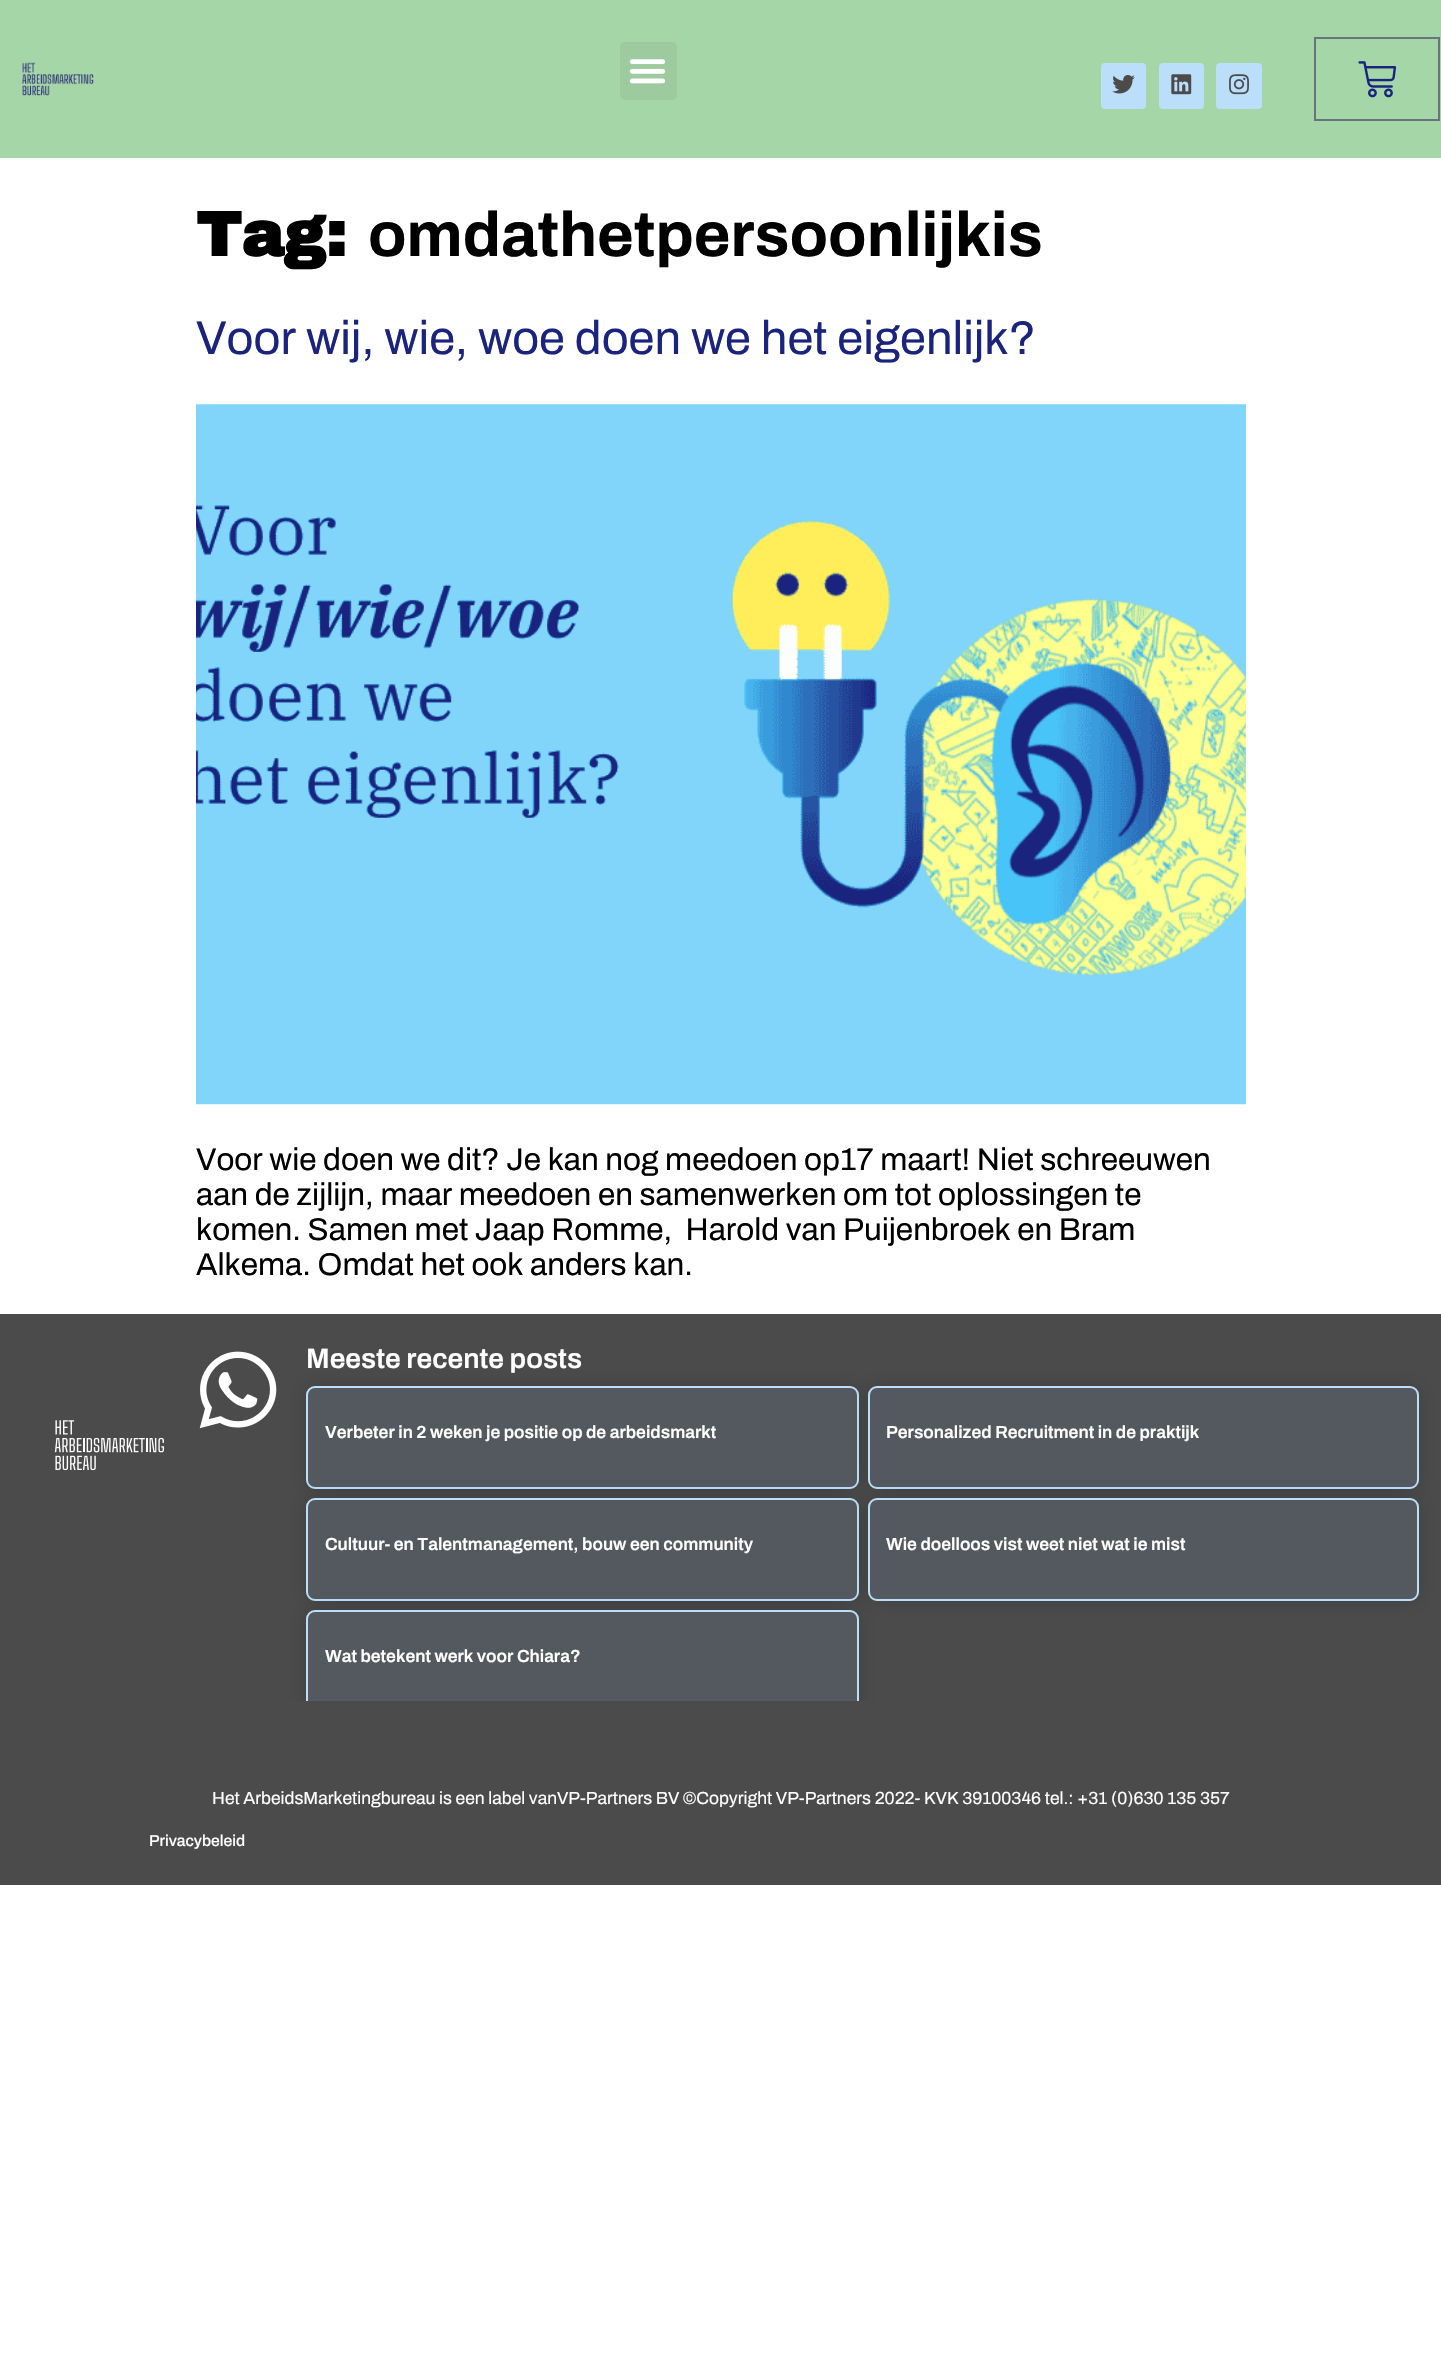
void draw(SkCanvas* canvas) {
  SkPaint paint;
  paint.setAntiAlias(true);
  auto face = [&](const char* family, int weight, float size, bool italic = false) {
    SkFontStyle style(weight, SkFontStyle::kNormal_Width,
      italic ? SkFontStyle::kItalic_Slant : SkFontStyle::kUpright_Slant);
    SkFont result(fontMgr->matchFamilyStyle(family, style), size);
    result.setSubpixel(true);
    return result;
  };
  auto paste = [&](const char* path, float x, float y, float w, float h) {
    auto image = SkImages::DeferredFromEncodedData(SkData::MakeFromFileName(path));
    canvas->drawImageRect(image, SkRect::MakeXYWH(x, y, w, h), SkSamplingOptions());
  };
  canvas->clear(0xffffffff);
  paint.setColor(0xffa5d6a7);
  canvas->drawRect(SkRect::MakeXYWH(0, 0, 1441, 158), paint);
  paste("img/1.png", 21, 62, 73, 34);
  paint.setColor(0xff9dcb9f);
  canvas->drawRoundRect(SkRect::MakeXYWH(620, 42, 57, 58), 5, 5, paint);
  paste("img/2.png", 629, 59, 37, 25);
  paint.setColor(0xffbbdefb);
  canvas->drawRoundRect(SkRect::MakeXYWH(1101, 63, 45, 46), 4, 4, paint);
  paste("img/3.png", 1112, 75, 23, 19);
  canvas->drawRoundRect(SkRect::MakeXYWH(1159, 63, 45, 46), 4, 4, paint);
  paste("img/4.png", 1171, 74, 21, 21);
  canvas->drawRoundRect(SkRect::MakeXYWH(1216, 63, 46, 46), 4, 4, paint);
  paste("img/5.png", 1229, 74, 20, 21);
  paint.setStroke(true);
  paint.setStrokeWidth(2);
  paint.setColor(0xff69727d);
  canvas->drawRect(SkRect::MakeXYWH(1315, 38, 124, 82), paint);
  paste("img/6.png", 1358, 61, 39, 37);
  paste("img/7.png", 196, 404, 1050, 701);
  paint.setStroke(false);
  paint.setColor(0xff4b4b4b);
  canvas->drawRect(SkRect::MakeXYWH(0, 1314, 1441, 387), paint);
  paste("img/8.png", 199, 1351, 78, 78);
  paint.setColor(0x26000000);
  paint.setMaskFilter(SkMaskFilter::MakeBlur(kNormal_SkBlurStyle, 9));
  canvas->drawRoundRect(SkRect::MakeXYWH(306, 1386, 553, 103), 9, 9, paint);
  paint.setMaskFilter(nullptr);
  paint.setColor(0xff54595f);
  canvas->drawRoundRect(SkRect::MakeXYWH(307, 1387, 551, 101), 8, 8, paint);
  paint.setStroke(true);
  paint.setColor(0xffbbdefb);
  canvas->drawRoundRect(SkRect::MakeXYWH(307, 1387, 551, 101), 8, 8, paint);
  paint.setStroke(false);
  paint.setColor(0x26000000);
  paint.setMaskFilter(SkMaskFilter::MakeBlur(kNormal_SkBlurStyle, 9));
  canvas->drawRoundRect(SkRect::MakeXYWH(868, 1386, 551, 103), 9, 9, paint);
  paint.setMaskFilter(nullptr);
  paint.setColor(0xff54595f);
  canvas->drawRoundRect(SkRect::MakeXYWH(869, 1387, 549, 101), 8, 8, paint);
  paint.setStroke(true);
  paint.setColor(0xffbbdefb);
  canvas->drawRoundRect(SkRect::MakeXYWH(869, 1387, 549, 101), 8, 8, paint);
  paint.setStroke(false);
  paint.setColor(0x26000000);
  paint.setMaskFilter(SkMaskFilter::MakeBlur(kNormal_SkBlurStyle, 9));
  canvas->drawRoundRect(SkRect::MakeXYWH(306, 1498, 553, 103), 9, 9, paint);
  paint.setMaskFilter(nullptr);
  paint.setColor(0xff54595f);
  canvas->drawRoundRect(SkRect::MakeXYWH(307, 1499, 551, 101), 8, 8, paint);
  paint.setStroke(true);
  paint.setColor(0xffbbdefb);
  canvas->drawRoundRect(SkRect::MakeXYWH(307, 1499, 551, 101), 8, 8, paint);
  paint.setStroke(false);
  paint.setColor(0x26000000);
  paint.setMaskFilter(SkMaskFilter::MakeBlur(kNormal_SkBlurStyle, 9));
  canvas->drawRoundRect(SkRect::MakeXYWH(868, 1498, 551, 103), 9, 9, paint);
  paint.setMaskFilter(nullptr);
  paint.setColor(0xff54595f);
  canvas->drawRoundRect(SkRect::MakeXYWH(869, 1499, 549, 101), 8, 8, paint);
  paint.setStroke(true);
  paint.setColor(0xffbbdefb);
  canvas->drawRoundRect(SkRect::MakeXYWH(869, 1499, 549, 101), 8, 8, paint);
  paint.setStroke(false);
  paint.setColor(0x26000000);
  paint.setMaskFilter(SkMaskFilter::MakeBlur(kNormal_SkBlurStyle, 9));
  canvas->drawRoundRect(SkRect::MakeXYWH(306, 1610, 553, 103), 9, 9, paint);
  paint.setMaskFilter(nullptr);
  paint.setColor(0xff54595f);
  canvas->drawRoundRect(SkRect::MakeXYWH(307, 1611, 551, 101), 8, 8, paint);
  paint.setStroke(true);
  paint.setColor(0xffbbdefb);
  canvas->drawRoundRect(SkRect::MakeXYWH(307, 1611, 551, 101), 8, 8, paint);
  paste("img/9.png", 54, 1420, 111, 51);
  paint.setStroke(false);
  paint.setColor(0xff4b4b4b);
  canvas->drawRect(SkRect::MakeXYWH(0, 1701, 1441, 184), paint);
  auto f0 = face("Archivo Black", 700, 63);
  paint.setColor(0xff000000);
  canvas->drawString("Tag:", 196, 256, f0, paint);
  auto f1 = face("Archivo", 700, 63);
  canvas->drawString("omdathetpersoonlijkis", 368, 256, f1, paint);
  auto f2 = face("Archivo", 400, 47.25f);
  paint.setColor(0xff1a237e);
  canvas->drawString("Voor wij, wie, woe doen we het eigenlijk?", 196, 354, f2, paint);
  auto f3 = face("Archivo", 400, 31.5f);
  paint.setColor(0xff000000);
  {
    const struct { const char* s; float x, y; } items[] = {
      {"Voor wie doen we dit? Je kan nog meedoen op17 maart! Niet schreeuwen", 196, 1170},
      {"aan de zijlijn, maar meedoen en samenwerken om tot oplossingen te", 196, 1205},
      {"komen. Samen met Jaap Romme,  Harold van Puijenbroek en Bram", 196, 1240},
      {"Alkema. Omdat het ook anders kan.", 196, 1275},
    };
    for (auto [s, x, y] : items) {
      canvas->drawString(s, x, y, f3, paint);
    }
  }
  auto f4 = face("Archivo", 600, 28);
  paint.setColor(0xffffffff);
  canvas->drawString("Meeste recente posts", 306, 1368, f4, paint);
  auto f5 = face("Archivo", 600, 17.5f);
  {
    const struct { const char* s; float x, y; } items[] = {
      {"Verbeter in 2 weken je positie op de arbeidsmarkt", 325, 1438},
      {"Personalized Recruitment in de praktijk", 886, 1438},
      {"Cultuur- en Talentmanagement, bouw een community", 325, 1550},
      {"Wie doelloos vist weet niet wat ie mist", 886, 1550},
      {"Wat betekent werk voor Chiara?", 325, 1662},
    };
    for (auto [s, x, y] : items) {
      canvas->drawString(s, x, y, f5, paint);
    }
  }
  auto f6 = face("Archivo", 400, 17.5f);
  canvas->drawString("Het ArbeidsMarketingbureau is een label vanVP-Partners BV ©Copyright VP-Partners 2022- KVK 39100346 tel.: +31 (0)630 135 357", 212, 1804, f6, paint);
  auto f7 = face("Archivo", 500, 15.75f);
  canvas->drawString("Privacybeleid", 149, 1846, f7, paint);
}
